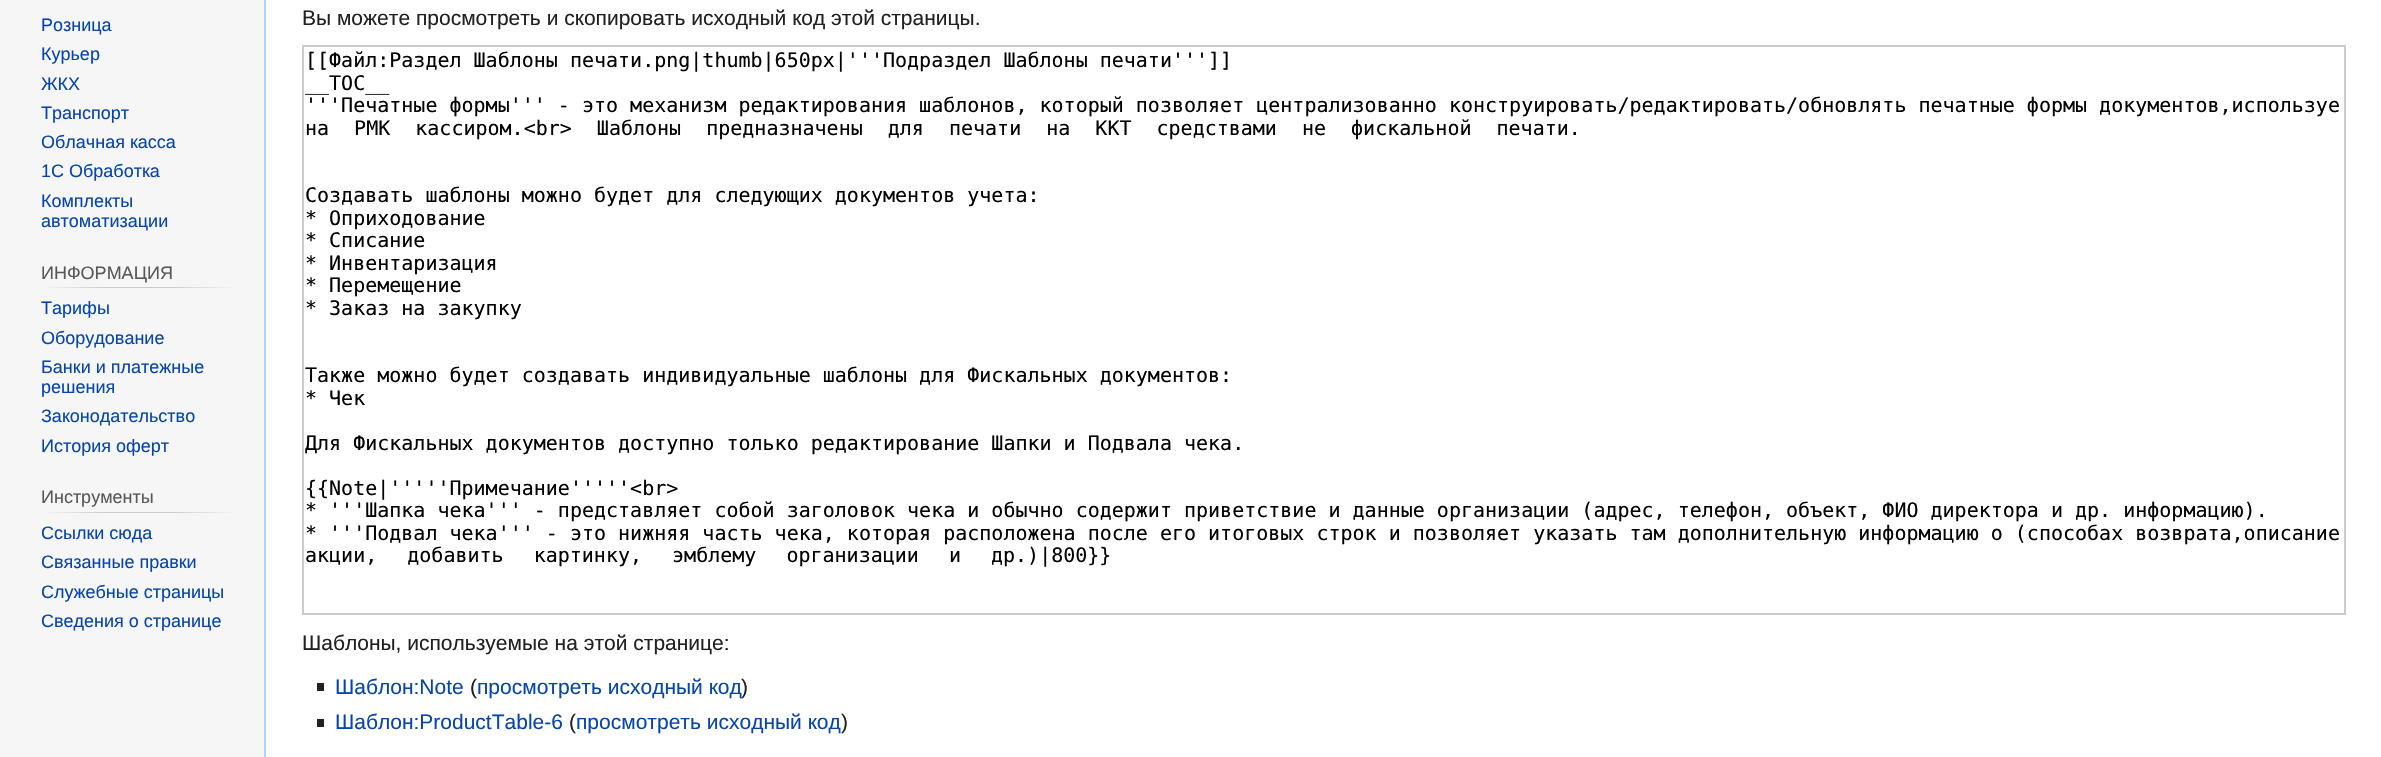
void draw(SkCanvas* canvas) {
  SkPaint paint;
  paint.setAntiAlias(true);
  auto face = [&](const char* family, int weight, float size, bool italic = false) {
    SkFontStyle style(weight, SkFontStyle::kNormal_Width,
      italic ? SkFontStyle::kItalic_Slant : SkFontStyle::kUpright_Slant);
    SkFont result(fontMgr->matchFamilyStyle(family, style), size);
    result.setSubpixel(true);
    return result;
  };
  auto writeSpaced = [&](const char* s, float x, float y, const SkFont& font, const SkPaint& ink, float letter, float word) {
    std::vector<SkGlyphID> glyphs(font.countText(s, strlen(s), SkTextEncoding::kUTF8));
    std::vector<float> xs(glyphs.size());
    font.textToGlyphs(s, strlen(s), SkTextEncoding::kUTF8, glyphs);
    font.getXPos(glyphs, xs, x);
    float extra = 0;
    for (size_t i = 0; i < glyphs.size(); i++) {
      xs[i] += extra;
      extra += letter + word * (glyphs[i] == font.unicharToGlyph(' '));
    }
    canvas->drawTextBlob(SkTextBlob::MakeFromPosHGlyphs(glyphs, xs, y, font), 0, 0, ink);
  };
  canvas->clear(0xfff6f6f6);
  {
    const SkColor colors[] = {0xfff6f6f6, 0xffc8ccd1, 0xffc8ccd1, 0xfff6f6f6};
    const float stops[] = {0, 0.33f, 0.66f, 1};
    const SkPoint ends[] = {{41, 287}, {237, 287}};
    paint.setShader(SkGradientShader::MakeLinear(ends, colors, stops, 4, SkTileMode::kClamp));
    paint.setAlpha(255);
  }
  canvas->drawRect(SkRect::MakeXYWH(41, 287, 196, 1), paint);
  {
    const SkColor colors[] = {0xfff6f6f6, 0xffc8ccd1, 0xffc8ccd1, 0xfff6f6f6};
    const float stops[] = {0, 0.33f, 0.66f, 1};
    const SkPoint ends[] = {{41, 512}, {237, 512}};
    paint.setShader(SkGradientShader::MakeLinear(ends, colors, stops, 4, SkTileMode::kClamp));
    paint.setAlpha(255);
  }
  canvas->drawRect(SkRect::MakeXYWH(41, 512, 196, 1), paint);
  paint.setShader(nullptr);
  paint.setColor(0xffffffff);
  canvas->drawRect(SkRect::MakeXYWH(266, 0, 2115, 757), paint);
  paint.setColor(0xffa7d7f9);
  canvas->drawRect(SkRect::MakeXYWH(264, 0, 2, 757), paint);
  paint.setStroke(true);
  paint.setStrokeWidth(2);
  paint.setColor(0xffc8ccd1);
  canvas->drawRect(SkRect::MakeXYWH(303, 46, 2042, 568), paint);
  paint.setStroke(false);
  paint.setColor(0xff202122);
  canvas->drawRect(SkRect::MakeXYWH(317, 683, 7, 8), paint);
  canvas->drawRect(SkRect::MakeXYWH(317, 719, 7, 8), paint);
  auto f0 = face("Liberation Sans", 400, 18);
  paint.setColor(0xff0645ad);
  {
    const struct { const char* s; float x, y; } items[] = {
      {"Розница", 41, 31},
      {"Курьер", 41, 60},
      {"ЖКХ", 41, 90},
      {"Транспорт", 41, 119},
      {"Облачная касса", 41, 148},
      {"1С Обработка", 41, 177},
      {"Комплекты", 41, 207},
      {"автоматизации", 41, 227},
    };
    for (auto [s, x, y] : items) {
      canvas->drawString(s, x, y, f0, paint);
    }
  }
  paint.setColor(0xff54595d);
  canvas->drawString("ИНФОРМАЦИЯ", 41, 279, f0, paint);
  paint.setColor(0xff0645ad);
  {
    const struct { const char* s; float x, y; } items[] = {
      {"Тарифы", 41, 314},
      {"Оборудование", 41, 344},
      {"Банки и платежные", 41, 373},
      {"решения", 41, 393},
      {"Законодательство", 41, 422},
      {"История оферт", 41, 452},
    };
    for (auto [s, x, y] : items) {
      canvas->drawString(s, x, y, f0, paint);
    }
  }
  paint.setColor(0xff54595d);
  canvas->drawString("Инструменты", 41, 503, f0, paint);
  paint.setColor(0xff0645ad);
  {
    const struct { const char* s; float x, y; } items[] = {
      {"Ссылки сюда", 41, 539},
      {"Связанные правки", 41, 568},
      {"Служебные страницы", 41, 598},
      {"Сведения о странице", 41, 627},
    };
    for (auto [s, x, y] : items) {
      canvas->drawString(s, x, y, f0, paint);
    }
  }
  auto f1 = face("Liberation Sans", 400, 21);
  paint.setColor(0xff202122);
  canvas->drawString("Вы можете просмотреть и скопировать исходный код этой страницы.", 302, 25, f1, paint);
  auto f2 = face("DejaVu Sans Mono", 400, 20);
  paint.setColor(0xff000000);
  {
    const struct { const char* s; float x, y; } items[] = {
      {"[[Файл:Раздел Шаблоны печати.png|thumb|650px|'''Подраздел Шаблоны печати''']]", 305, 67},
      {"__TOC__", 305, 90},
      {"'''Печатные формы''' - это механизм редактирования шаблонов, который позволяет централизованно конструировать/редактировать/обновлять печатные формы документов,используе", 305, 112},
    };
    for (auto [s, x, y] : items) {
      canvas->drawString(s, x, y, f2, paint);
    }
  }
  writeSpaced("на РМК кассиром.<br> Шаблоны предназначены для печати на ККТ средствами не фискальной печати.", 305, 135, f2, paint, 0, 13);
  {
    const struct { const char* s; float x, y; } items[] = {
      {"Создавать шаблоны можно будет для следующих документов учета:", 305, 202},
      {"* Оприходование", 305, 225},
      {"* Списание", 305, 247},
      {"* Инвентаризация", 305, 270},
      {"* Перемещение", 305, 292},
      {"* Заказ на закупку", 305, 315},
      {"Также можно будет создавать индивидуальные шаблоны для Фискальных документов:", 305, 382},
      {"* Чек", 305, 405},
      {"Для Фискальных документов доступно только редактирование Шапки и Подвала чека.", 305, 450},
      {"{{Note|'''''Примечание'''''<br>", 305, 495},
      {"* '''Шапка чека''' - представляет собой заголовок чека и обычно содержит приветствие и данные организации (адрес, телефон, объект, ФИО директора и др. информацию).", 305, 517},
      {"* '''Подвал чека''' - это нижняя часть чека, которая расположена после его итоговых строк и позволяет указать там дополнительную информацию о (способах возврата,описание", 305, 540},
    };
    for (auto [s, x, y] : items) {
      canvas->drawString(s, x, y, f2, paint);
    }
  }
  writeSpaced("акции, добавить картинку, эмблему организации и др.)|800}}", 305, 562, f2, paint, 0, 18);
  paint.setColor(0xff202122);
  canvas->drawString("Шаблоны, используемые на этой странице:", 302, 650, f1, paint);
  paint.setColor(0xff0645ad);
  canvas->drawString("Шаблон:Note", 335, 694, f1, paint);
  paint.setColor(0xff202122);
  canvas->drawString("(", 470, 694, f1, paint);
  paint.setColor(0xff0645ad);
  canvas->drawString("просмотреть исходный код", 477, 694, f1, paint);
  paint.setColor(0xff202122);
  canvas->drawString(")", 741, 694, f1, paint);
  paint.setColor(0xff0645ad);
  canvas->drawString("Шаблон:ProductTable-6", 335, 729, f1, paint);
  paint.setColor(0xff202122);
  canvas->drawString("(", 569, 729, f1, paint);
  paint.setColor(0xff0645ad);
  canvas->drawString("просмотреть исходный код", 576, 729, f1, paint);
  paint.setColor(0xff202122);
  canvas->drawString(")", 841, 729, f1, paint);
}
